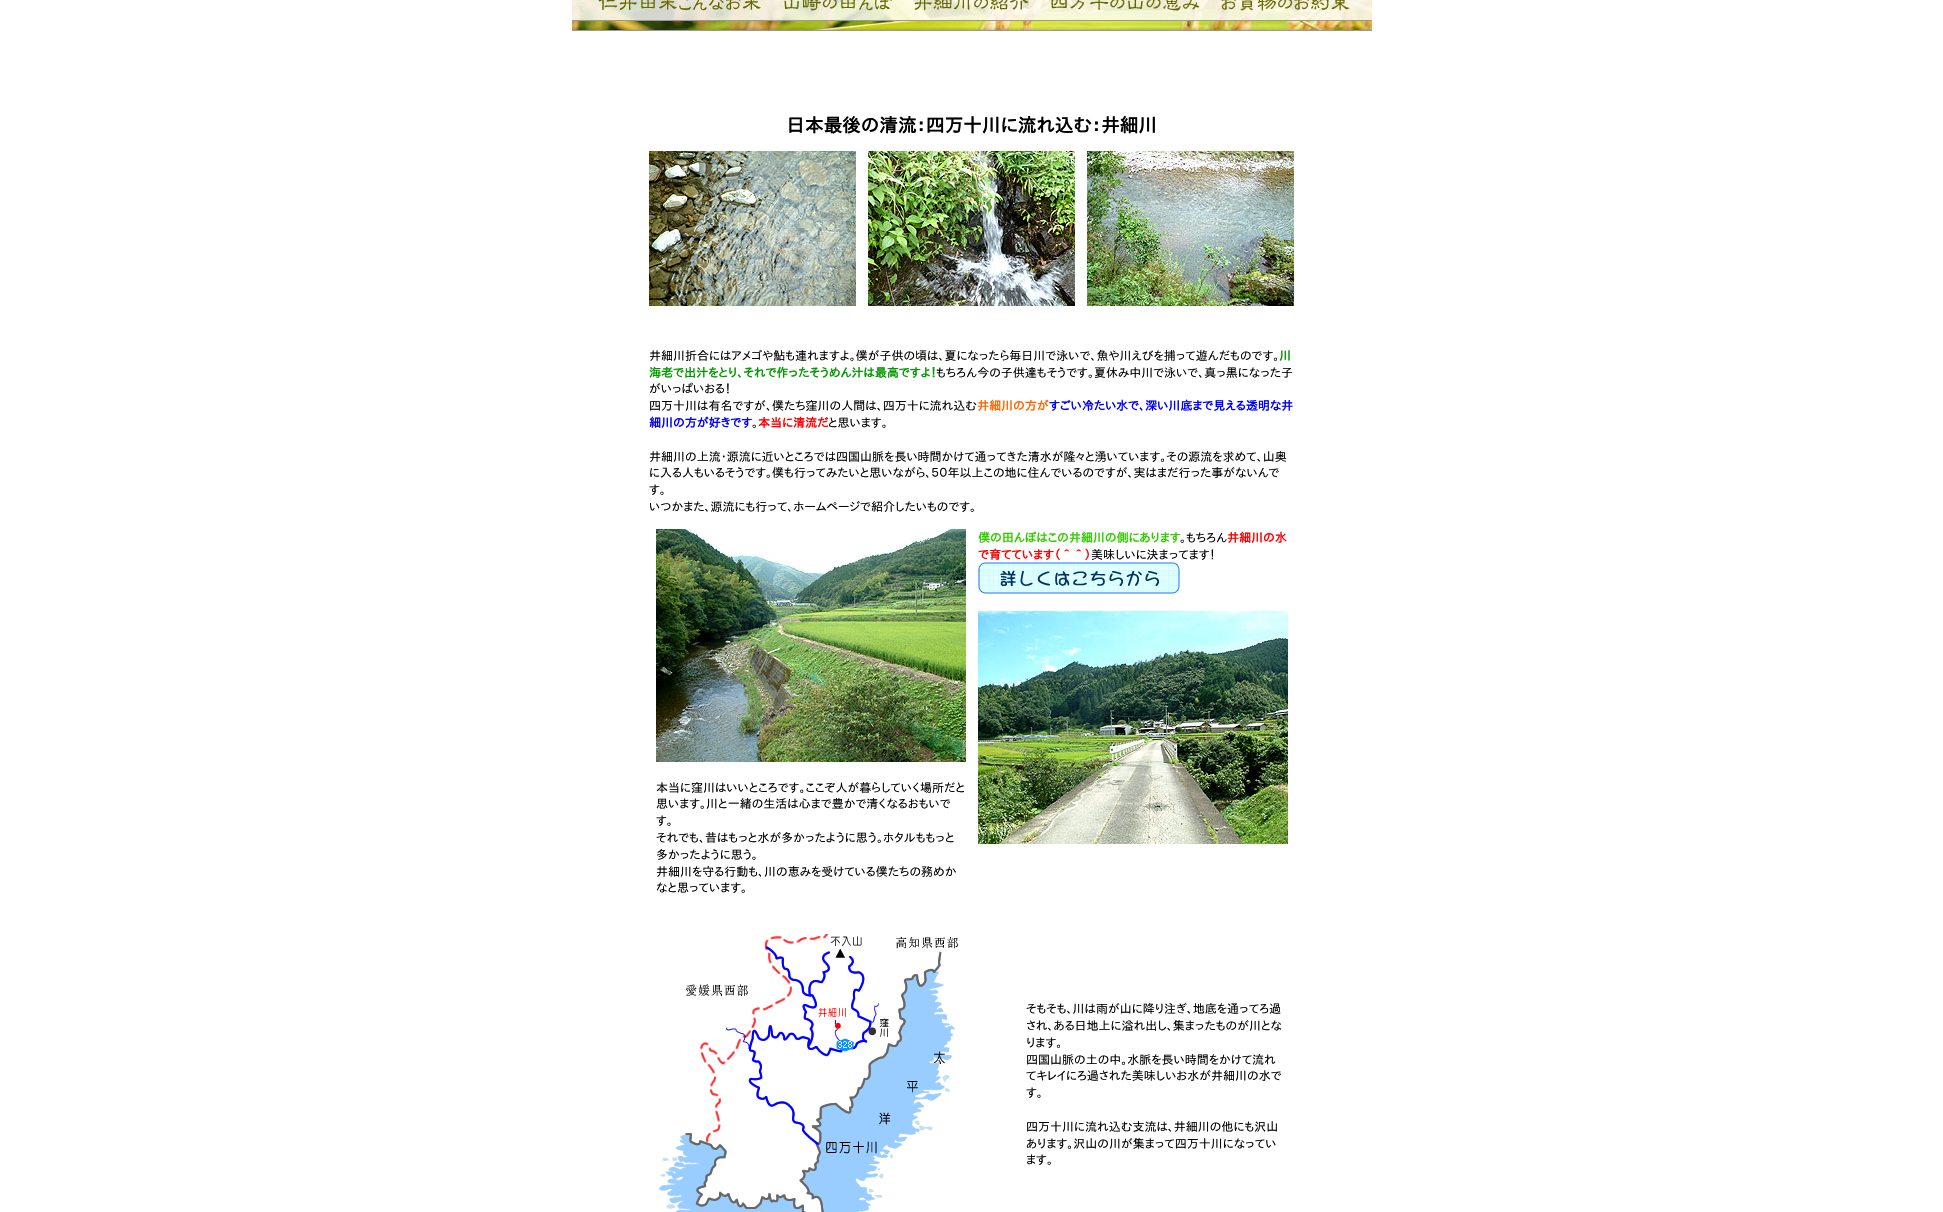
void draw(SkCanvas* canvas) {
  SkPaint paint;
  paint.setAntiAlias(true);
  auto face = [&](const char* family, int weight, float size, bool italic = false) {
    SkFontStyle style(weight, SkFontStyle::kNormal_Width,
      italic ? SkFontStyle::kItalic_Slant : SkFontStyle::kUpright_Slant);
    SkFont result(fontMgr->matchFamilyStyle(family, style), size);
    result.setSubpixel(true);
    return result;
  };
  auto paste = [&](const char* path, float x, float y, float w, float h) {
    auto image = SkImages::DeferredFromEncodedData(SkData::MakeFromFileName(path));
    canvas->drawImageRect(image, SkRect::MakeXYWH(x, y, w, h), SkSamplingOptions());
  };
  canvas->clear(0xffffffff);
  paste("img/1.png", 572, 0, 200, 31);
  paste("img/2.png", 772, 0, 131, 31);
  paste("img/3.png", 903, 0, 137, 31);
  paste("img/4.png", 1040, 0, 170, 31);
  paste("img/5.png", 1210, 0, 162, 31);
  paste("img/6.png", 649, 151, 207, 155);
  paste("img/7.png", 868, 151, 207, 155);
  paste("img/8.png", 1087, 151, 207, 155);
  paste("img/9.png", 978, 562, 202, 32);
  paste("img/10.png", 978, 611, 310, 233);
  paste("img/11.png", 656, 529, 310, 233);
  paste("img/12.png", 659, 934, 299, 278);
  auto f0 = face("IPAPGothic", 700, 18.7f);
  paint.setColor(0xff000000);
  canvas->drawString("日本最後の清流：四万十川に流れ込む：井細川", 786, 132, f0, paint);
  auto f1 = face("IPAPGothic", 400, 12);
  canvas->drawString("井細川折合にはアメゴや鮎も連れますよ。僕が子供の頃は、夏になったら毎日川で泳いで、魚や川えびを捕って遊んだものです。", 649, 360, f1, paint);
  auto f2 = face("IPAPGothic", 700, 12);
  paint.setColor(0xff009900);
  canvas->drawString("川", 1279, 360, f2, paint);
  canvas->drawString("海老で出汁をとり、それで作ったそうめん汁は最高ですよ！", 649, 377, f2, paint);
  paint.setColor(0xff000000);
  {
    const struct { const char* s; float x, y; } items[] = {
      {"もちろん今の子供達もそうです。夏休み中川で泳いで、真っ黒になった子", 936, 377},
      {"がいっぱいおる！", 649, 393},
      {"四万十川は有名ですが、僕たち窪川の人間は、四万十に流れ込む", 649, 410},
    };
    for (auto [s, x, y] : items) {
      canvas->drawString(s, x, y, f1, paint);
    }
  }
  paint.setColor(0xffff6600);
  canvas->drawString("井細川の方が", 977, 410, f2, paint);
  paint.setColor(0xff0000ff);
  canvas->drawString("すごい冷たい水で、深い川底まで見える透明な井", 1049, 410, f2, paint);
  canvas->drawString("細川の方が好きです", 649, 427, f2, paint);
  paint.setColor(0xff000000);
  canvas->drawString("。", 752, 427, f1, paint);
  paint.setColor(0xffff0000);
  canvas->drawString("本当に清流だ", 758, 427, f2, paint);
  paint.setColor(0xff000000);
  {
    const struct { const char* s; float x, y; } items[] = {
      {"と思います。", 828, 427},
      {"井細川の上流・源流に近いところでは四国山脈を長い時間かけて通ってきた清水が隆々と湧いています。その源流を求めて、山奥", 649, 461},
      {"に入る人もいるそうです。僕も行ってみたいと思いながら、５０年以上この地に住んでいるのですが、実はまだ行った事がないんで", 649, 477},
      {"す。", 649, 494},
      {"いつかまた、源流にも行って、ホームページで紹介したいものです。", 649, 511},
    };
    for (auto [s, x, y] : items) {
      canvas->drawString(s, x, y, f1, paint);
    }
  }
  paint.setColor(0xff33cc00);
  canvas->drawString("僕の田んぼはこの井細川の側にあります", 978, 542, f2, paint);
  paint.setColor(0xff000000);
  canvas->drawString("。もちろん", 1180, 542, f1, paint);
  paint.setColor(0xffff0000);
  canvas->drawString("井細川の水", 1227, 542, f2, paint);
  canvas->drawString("で育てています（＾＾）", 978, 559, f2, paint);
  paint.setColor(0xff000000);
  {
    const struct { const char* s; float x, y; } items[] = {
      {"美味しいに決まってます！", 1091, 559},
      {"本当に窪川はいいところです。ここぞ人が暮らしていく場所だと", 656, 792},
      {"思います。川と一緒の生活は心まで豊かで清くなるおもいで", 656, 808},
      {"す。", 656, 825},
      {"それでも、昔はもっと水が多かったように思う。ホタルももっと", 656, 842},
      {"多かったように思う。", 656, 859},
      {"井細川を守る行動も、川の恵みを受けている僕たちの務めか", 656, 876},
      {"なと思っています。", 656, 892},
      {"そもそも、川は雨が山に降り注ぎ、地底を通ってろ過", 1026, 1013},
      {"され、ある日地上に溢れ出し、集まったものが川とな", 1026, 1030},
      {"ります。", 1026, 1047},
      {"四国山脈の土の中。水脈を長い時間をかけて流れ", 1026, 1064},
      {"てキレイにろ過された美味しいお水が井細川の水で", 1026, 1080},
      {"す。", 1026, 1097},
      {"四万十川に流れ込む支流は、井細川の他にも沢山", 1026, 1131},
      {"あります。沢山の川が集まって四万十川になってい", 1026, 1148},
      {"ます。", 1026, 1164},
    };
    for (auto [s, x, y] : items) {
      canvas->drawString(s, x, y, f1, paint);
    }
  }
}
